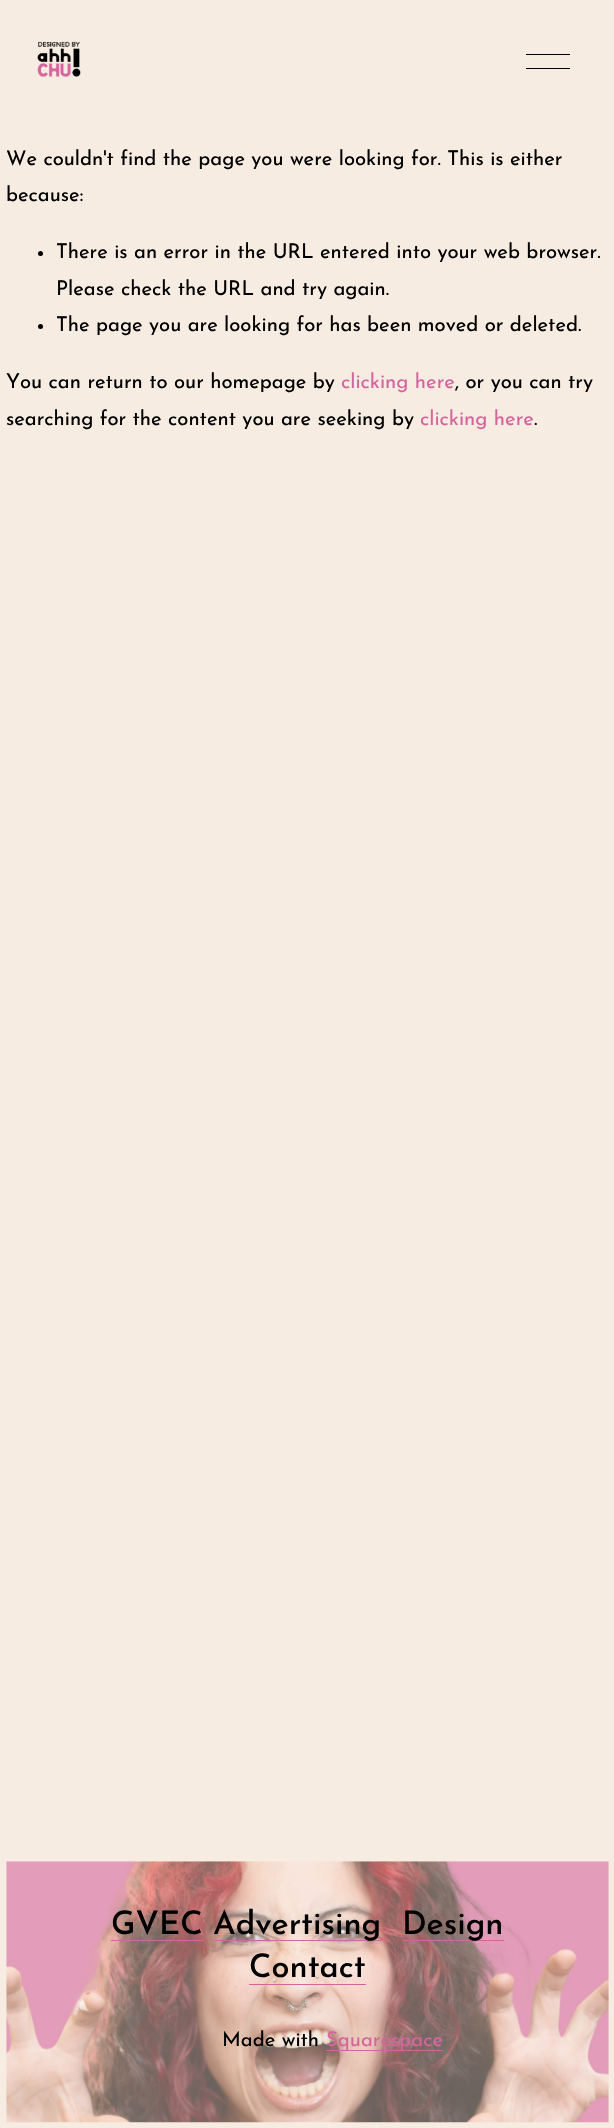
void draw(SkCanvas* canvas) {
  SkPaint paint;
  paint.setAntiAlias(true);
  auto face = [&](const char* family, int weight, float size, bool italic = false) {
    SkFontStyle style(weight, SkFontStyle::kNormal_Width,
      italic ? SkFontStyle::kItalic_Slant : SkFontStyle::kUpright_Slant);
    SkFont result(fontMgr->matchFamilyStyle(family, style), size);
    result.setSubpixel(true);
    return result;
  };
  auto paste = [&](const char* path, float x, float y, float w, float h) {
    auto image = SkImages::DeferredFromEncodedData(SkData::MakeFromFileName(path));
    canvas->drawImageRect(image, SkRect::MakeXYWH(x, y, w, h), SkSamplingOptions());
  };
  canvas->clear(0xfff7ece1);
  paste("img/1.png", 37, 41, 44, 36);
  paint.setColor(0xff000000);
  canvas->drawRect(SkRect::MakeXYWH(526, 54, 44, 1), paint);
  canvas->drawRect(SkRect::MakeXYWH(526, 68, 44, 1), paint);
  canvas->drawCircle(40.5f, 253.5f, 2.5f, paint);
  canvas->drawCircle(40.5f, 326.5f, 2.5f, paint);
  paste("img/2.png", 6, 1861, 603, 262);
  {
    const struct { float x, y, w, h; SkColor color; } items[] = {
      {111, 1940, 93, 1, 0xffd5659e},
      {214, 1940, 167, 1, 0xffd5659e},
      {403, 1940, 101, 1, 0xffd5659e},
      {249, 1984, 117, 1, 0xffd5659e},
      {326, 2050, 117, 1, 0xffd5659e},
    };
    for (auto [x, y, w, h, color] : items) {
      paint.setColor(color);
      canvas->drawRect(SkRect::MakeXYWH(x, y, w, h), paint);
    }
  }
  auto f0 = face("Josefin Sans", 400, 20.3f);
  paint.setColor(0xff000000);
  {
    const struct { const char* s; float x, y; } items[] = {
      {"We couldn't find the page you were looking for. This is either", 6, 165},
      {"because:", 6, 201},
      {"There is an error in the URL entered into your web browser.", 56, 258},
      {"Please check the URL and try again.", 56, 295},
      {"The page you are looking for has been moved or deleted.", 56, 331},
      {"You can return to our homepage by", 6, 388},
    };
    for (auto [s, x, y] : items) {
      canvas->drawString(s, x, y, f0, paint);
    }
  }
  paint.setColor(0xffd5659e);
  canvas->drawString("clicking here", 341, 388, f0, paint);
  paint.setColor(0xff000000);
  canvas->drawString(", or you can try", 455, 388, f0, paint);
  canvas->drawString("searching for the content you are seeking by", 6, 425, f0, paint);
  paint.setColor(0xffd5659e);
  canvas->drawString("clicking here", 420, 425, f0, paint);
  paint.setColor(0xff000000);
  canvas->drawString(".", 534, 425, f0, paint);
  auto f1 = face("Josefin Sans", 500, 32.5f);
  {
    const struct { const char* s; float x, y; } items[] = {
      {"GVEC", 111, 1934},
      {"Advertising", 213, 1934},
      {"Design", 402, 1934},
      {"Contact", 249, 1977},
    };
    for (auto [s, x, y] : items) {
      canvas->drawString(s, x, y, f1, paint);
    }
  }
  canvas->drawString("Made with", 222, 2046, f0, paint);
  paint.setColor(0xffd5659e);
  canvas->drawString("Squarespace", 326, 2046, f0, paint);
}
